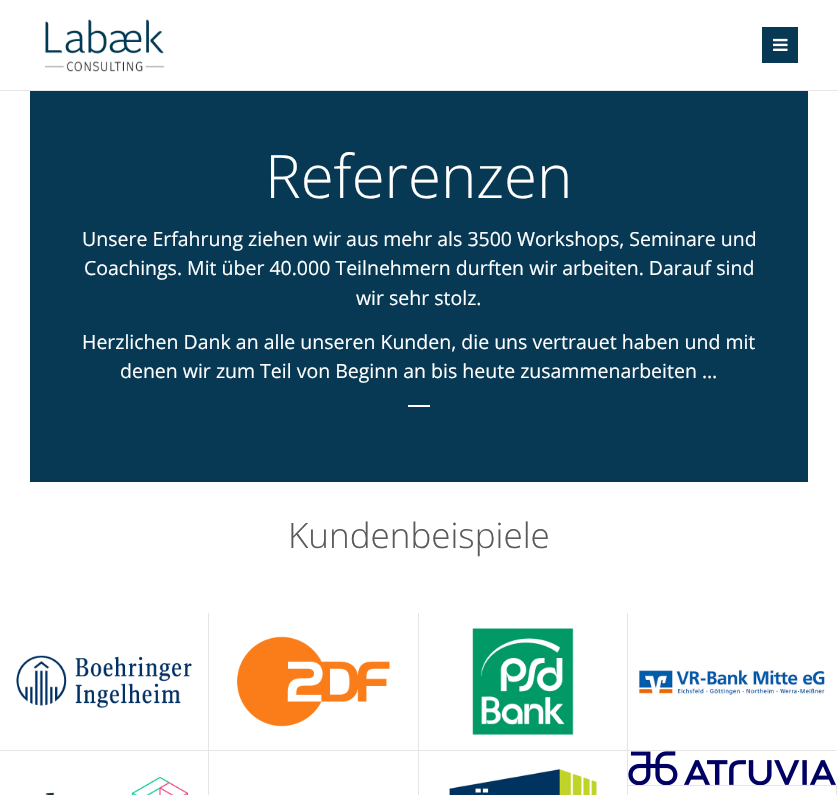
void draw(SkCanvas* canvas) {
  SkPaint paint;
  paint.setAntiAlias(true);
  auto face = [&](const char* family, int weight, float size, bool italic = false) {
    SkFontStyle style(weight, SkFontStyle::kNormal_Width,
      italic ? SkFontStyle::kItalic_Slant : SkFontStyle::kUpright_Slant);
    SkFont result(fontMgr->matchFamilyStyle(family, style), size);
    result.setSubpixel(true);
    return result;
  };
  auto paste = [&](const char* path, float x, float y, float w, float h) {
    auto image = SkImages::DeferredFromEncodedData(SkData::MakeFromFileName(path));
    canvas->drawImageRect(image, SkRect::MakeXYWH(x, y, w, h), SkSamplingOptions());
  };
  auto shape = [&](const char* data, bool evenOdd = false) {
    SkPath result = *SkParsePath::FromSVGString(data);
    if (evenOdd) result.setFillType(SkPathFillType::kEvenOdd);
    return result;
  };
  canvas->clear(0xffffffff);
  paste("img/1.png", 45, 19, 120, 53);
  paint.setColor(0xff073954);
  canvas->drawRect(SkRect::MakeXYWH(762, 27, 36, 36), paint);
  paste("img/2.png", 773, 38, 15, 13);
  {
    const struct { float x, y, w, h; SkColor color; } items[] = {
      {0, 90, 838, 1, 0xffe6e6e6},
      {30, 91, 778, 391, 0xff073954},
      {408, 405, 22, 2, 0xffffffff},
      {208, 613, 1, 182, 0xffe5e5e5},
      {0, 750, 209, 1, 0xffe5e5e5},
    };
    for (auto [x, y, w, h, color] : items) {
      paint.setColor(color);
      canvas->drawRect(SkRect::MakeXYWH(x, y, w, h), paint);
    }
  }
  paste("img/3.png", 16, 655, 176, 53);
  canvas->drawRect(SkRect::MakeXYWH(418, 613, 1, 182), paint);
  canvas->drawRect(SkRect::MakeXYWH(209, 750, 210, 1), paint);
  paste("img/4.png", 237, 636, 153, 91);
  canvas->drawRect(SkRect::MakeXYWH(627, 613, 1, 182), paint);
  canvas->drawRect(SkRect::MakeXYWH(419, 750, 209, 1), paint);
  paste("img/5.png", 472, 628, 102, 107);
  canvas->drawPath(shape("M837 751H628V750H836Z"), paint);
  paste("img/6.png", 638, 669, 187, 26);
  paste("img/7.png", 45, 776, 144, 19);
  paste("img/8.png", 449, 768, 148, 27);
  canvas->drawPath(shape("M837 786H628V785H836Z"), paint);
  paste("img/9.png", 628, 751, 208, 34);
  canvas->drawPath(shape("M837 786V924L836 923V786Z"), paint);
  auto f0 = face("Open Sans", 300, 60);
  paint.setColor(0xffffffff);
  canvas->drawString("Referenzen", 265, 198, f0, paint);
  auto f1 = face("Open Sans", 400, 19.5f);
  {
    const struct { const char* s; float x, y; } items[] = {
      {"Unsere Erfahrung ziehen wir aus mehr als 3500 Workshops, Seminare und", 82, 246},
      {"Coachings. Mit über 40.000 Teilnehmern durften wir arbeiten. Darauf sind", 84, 275},
      {"wir sehr stolz.", 356, 305},
      {"Herzlichen Dank an alle unseren Kunden, die uns vertrauet haben und mit", 82, 349},
      {"denen wir zum Teil von Beginn an bis heute zusammenarbeiten …", 120, 378},
    };
    for (auto [s, x, y] : items) {
      canvas->drawString(s, x, y, f1, paint);
    }
  }
  auto f2 = face("Open Sans", 300, 35);
  paint.setColor(0xff5a5a5a);
  canvas->drawString("Kundenbeispiele", 288, 548, f2, paint);
}
